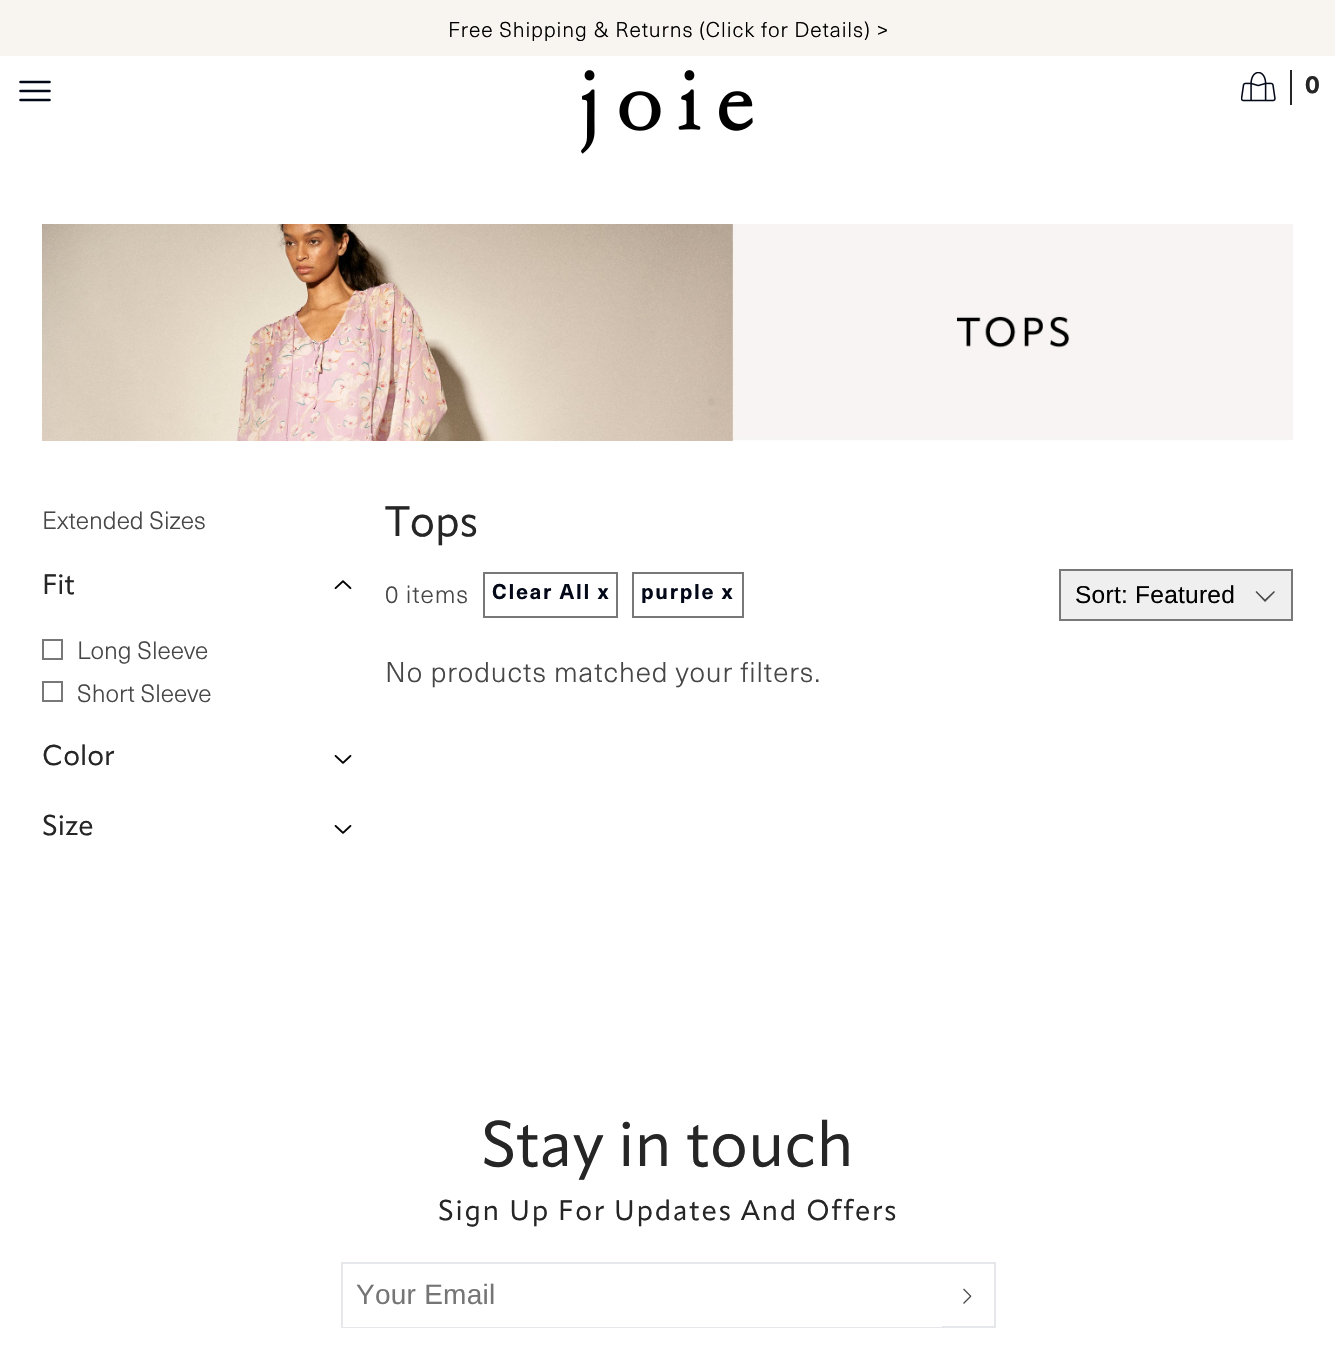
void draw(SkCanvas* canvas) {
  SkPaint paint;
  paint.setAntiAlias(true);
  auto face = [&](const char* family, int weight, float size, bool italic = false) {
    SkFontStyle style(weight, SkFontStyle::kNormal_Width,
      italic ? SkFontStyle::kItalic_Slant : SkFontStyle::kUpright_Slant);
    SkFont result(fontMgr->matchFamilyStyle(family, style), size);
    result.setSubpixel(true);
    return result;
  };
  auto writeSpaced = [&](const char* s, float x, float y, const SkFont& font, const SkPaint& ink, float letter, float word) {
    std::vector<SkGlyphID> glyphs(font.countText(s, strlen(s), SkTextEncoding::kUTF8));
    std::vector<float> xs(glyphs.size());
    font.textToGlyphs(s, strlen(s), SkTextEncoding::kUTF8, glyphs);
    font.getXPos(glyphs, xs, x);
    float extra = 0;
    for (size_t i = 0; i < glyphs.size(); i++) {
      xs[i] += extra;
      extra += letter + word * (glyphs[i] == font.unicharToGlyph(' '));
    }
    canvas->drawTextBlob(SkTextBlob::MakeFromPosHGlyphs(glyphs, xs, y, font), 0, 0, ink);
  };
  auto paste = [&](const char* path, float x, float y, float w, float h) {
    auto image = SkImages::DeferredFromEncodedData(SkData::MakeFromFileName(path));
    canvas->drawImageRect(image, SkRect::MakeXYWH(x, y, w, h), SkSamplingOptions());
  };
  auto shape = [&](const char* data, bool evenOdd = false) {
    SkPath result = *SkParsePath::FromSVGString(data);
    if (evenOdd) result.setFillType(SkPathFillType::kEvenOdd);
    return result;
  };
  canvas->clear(0xffffffff);
  paint.setColor(0xfff8f4f0);
  canvas->drawRect(SkRect::MakeXYWH(0, 0, 1335, 56), paint);
  paint.setStroke(true);
  paint.setStrokeWidth(2.6f);
  paint.setStrokeCap(SkPaint::kRound_Cap);
  paint.setStrokeJoin(SkPaint::kRound_Join);
  paint.setColor(0xff020817);
  canvas->drawPath(shape("M20.5 82H49.5M20.5 91H49.5M20.5 100H49.5"), paint);
  paste("img/1.png", 581, 70, 172, 84);
  paste("img/2.png", 1241, 72, 35, 30);
  paint.setStroke(false);
  paint.setColor(0xff262626);
  canvas->drawRect(SkRect::MakeXYWH(1290, 70, 2, 35), paint);
  paste("img/3.png", 42, 224, 1251, 217);
  paste("img/4.png", 334, 580, 18, 10);
  paint.setStroke(true);
  paint.setStrokeWidth(2);
  paint.setStrokeCap(SkPaint::kButt_Cap);
  paint.setStrokeJoin(SkPaint::kMiter_Join);
  paint.setColor(0xff787878);
  canvas->drawRect(SkRect::MakeXYWH(43, 640, 19, 19), paint);
  canvas->drawRect(SkRect::MakeXYWH(43, 682, 19, 19), paint);
  paste("img/5.png", 334, 755, 18, 9);
  paste("img/5.png", 334, 825, 18, 9);
  canvas->drawRect(SkRect::MakeXYWH(484, 573, 133, 44), paint);
  canvas->drawRect(SkRect::MakeXYWH(633, 573, 110, 44), paint);
  paint.setStroke(false);
  paint.setColor(0xffefefef);
  canvas->drawRect(SkRect::MakeXYWH(1060, 570, 232, 50), paint);
  paint.setStroke(true);
  paint.setColor(0xff787878);
  canvas->drawRect(SkRect::MakeXYWH(1060, 570, 232, 50), paint);
  paint.setStroke(false);
  paint.setColor(0xff484848);
  canvas->drawPath(shape("M1275 592L1265 602V599.5L1274 591ZM1265 602L1255.5 592L1256.5 591L1265 599.5Z"), paint);
  paint.setStroke(true);
  paint.setColor(0xffe5e7eb);
  canvas->drawRect(SkRect::MakeXYWH(342, 1263, 653, 64), paint);
  paint.setStroke(false);
  paint.setColor(0xffffffff);
  canvas->drawRect(SkRect::MakeXYWH(343, 1326, 599, 1), paint);
  paint.setStroke(true);
  paint.setStrokeWidth(1.3f);
  paint.setStrokeCap(SkPaint::kSquare_Cap);
  paint.setColor(0xff4a4a4a);
  canvas->drawPath(shape("M970.5 1296.5L964 1303M970.5 1296L964 1289.5"), paint);
  auto f0 = face("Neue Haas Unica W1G", 300, 21);
  paint.setStroke(false);
  paint.setColor(0xff000000);
  writeSpaced("Free Shipping & Returns (Click for Details) >", 448, 37, f0, paint, 0.9f, 0);
  auto f1 = face("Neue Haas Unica", 700, 24.5f);
  paint.setColor(0xff262626);
  writeSpaced("0", 1305, 93, f1, paint, 1, 0);
  auto f2 = face("Neue Haas Unica W1G", 300, 24.5f);
  paint.setColor(0xff474747);
  canvas->drawString("Extended Sizes", 42, 529, f2, paint);
  auto f3 = face("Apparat", 400, 28);
  paint.setColor(0xff262626);
  canvas->drawString("Fit", 42, 594, f3, paint);
  paint.setColor(0xff474747);
  canvas->drawString("Long Sleeve", 77, 659, f2, paint);
  canvas->drawString("Short Sleeve", 77, 702, f2, paint);
  paint.setColor(0xff262626);
  canvas->drawString("Color", 42, 765, f3, paint);
  canvas->drawString("Size", 42, 835, f3, paint);
  auto f4 = face("Apparat", 400, 42);
  canvas->drawString("Tops", 385, 536, f4, paint);
  paint.setColor(0xff474747);
  writeSpaced("0 items", 385, 603, f2, paint, 0.9f, 0);
  auto f5 = face("Neue Haas Unica", 700, 21);
  paint.setColor(0xff020817);
  writeSpaced("Clear All x", 492, 599, f5, paint, 1.75f, 0);
  writeSpaced("purple x", 641, 599, f5, paint, 1.75f, 0);
  auto f6 = face("Liberation Sans", 400, 24.5f);
  paint.setColor(0xff000000);
  writeSpaced("Sort: Featured", 1075, 603, f6, paint, 0.25f, 0);
  auto f7 = face("Neue Haas Unica W1G", 300, 28);
  paint.setColor(0xff474747);
  writeSpaced("No products matched your filters.", 385, 682, f7, paint, 0.9f, 0);
  auto f8 = face("Apparat", 400, 63);
  paint.setColor(0xff262626);
  canvas->drawString("Stay in touch", 481, 1166, f8, paint);
  writeSpaced("Sign Up For Updates And Offers", 438, 1220, f3, paint, 1.75f, 0);
  auto f9 = face("Liberation Sans", 400, 28);
  paint.setColor(0xff757575);
  writeSpaced("Your Email", 356, 1304, f9, paint, 0.25f, 0);
}
